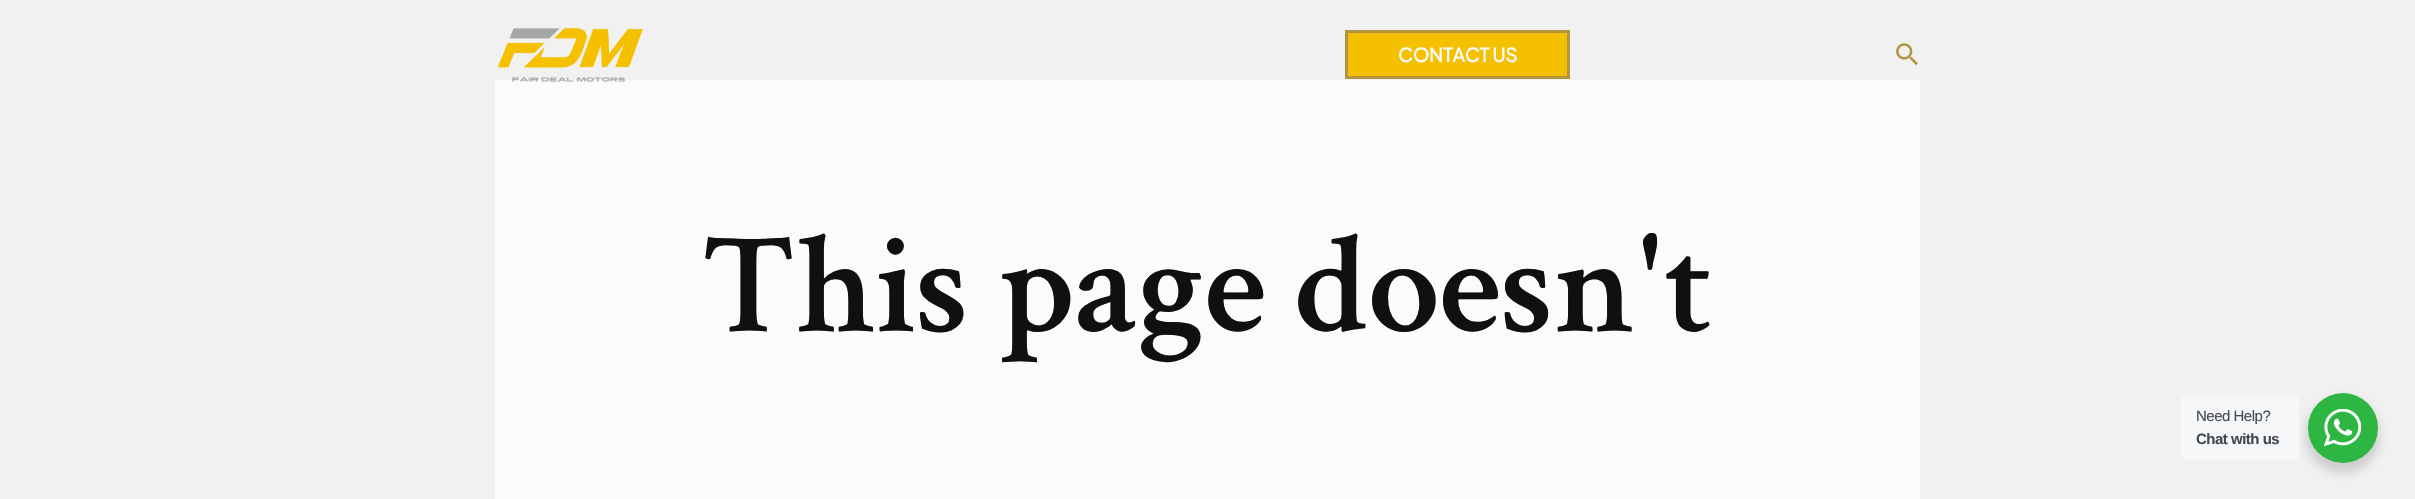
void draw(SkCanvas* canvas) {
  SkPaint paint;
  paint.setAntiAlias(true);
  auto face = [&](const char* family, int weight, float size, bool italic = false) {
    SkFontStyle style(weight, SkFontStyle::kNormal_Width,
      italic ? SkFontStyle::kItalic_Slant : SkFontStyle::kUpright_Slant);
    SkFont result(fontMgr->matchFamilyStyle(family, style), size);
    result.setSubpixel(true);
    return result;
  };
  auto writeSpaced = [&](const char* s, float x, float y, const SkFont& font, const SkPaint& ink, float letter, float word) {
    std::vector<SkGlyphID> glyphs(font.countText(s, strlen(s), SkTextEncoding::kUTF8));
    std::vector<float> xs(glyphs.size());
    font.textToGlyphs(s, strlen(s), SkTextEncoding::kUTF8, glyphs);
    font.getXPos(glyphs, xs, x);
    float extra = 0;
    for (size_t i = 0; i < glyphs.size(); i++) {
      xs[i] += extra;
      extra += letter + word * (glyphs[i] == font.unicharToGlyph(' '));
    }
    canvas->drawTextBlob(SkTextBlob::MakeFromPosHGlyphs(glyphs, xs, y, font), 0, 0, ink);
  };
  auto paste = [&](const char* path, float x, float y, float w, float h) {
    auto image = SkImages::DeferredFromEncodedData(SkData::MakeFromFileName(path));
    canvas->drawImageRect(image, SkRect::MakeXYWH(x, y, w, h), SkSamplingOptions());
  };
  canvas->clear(0xfff1f1f1);
  paint.setColor(0xfffbfbfb);
  canvas->drawRect(SkRect::MakeXYWH(495, 80, 1425, 419), paint);
  paste("img/1.png", 497, 27, 146, 55);
  paint.setColor(0xfff5c000);
  canvas->drawRect(SkRect::MakeXYWH(1346.5f, 31.5f, 222, 46), paint);
  paint.setStroke(true);
  paint.setStrokeWidth(3);
  paint.setColor(0xffb19540);
  canvas->drawRect(SkRect::MakeXYWH(1346.5f, 31.5f, 222, 46), paint);
  paste("img/2.png", 1896, 43, 22, 23);
  paint.setStroke(false);
  paint.setColor(0x24000000);
  paint.setMaskFilter(SkMaskFilter::MakeBlur(kNormal_SkBlurStyle, 5));
  canvas->drawRoundRect(SkRect::MakeXYWH(2305, 398, 75, 75), 37.5f, 37.5f, paint);
  paint.setMaskFilter(nullptr);
  paint.setColor(0xfff5f7f9);
  canvas->drawRoundRect(SkRect::MakeXYWH(2181, 395, 118, 65), 5, 5, paint);
  paint.setColor(0xff2db742);
  canvas->drawCircle(2343, 428, 35, paint);
  paste("img/3.png", 2324, 409, 37, 37);
  auto f0 = face("Plus Jakarta Sans", 700, 18.75f);
  paint.setColor(0xfffbfbfb);
  canvas->drawString("CONTACT US", 1398, 62, f0, paint);
  auto f1 = face("Crimson Text", 600, 143.75f);
  paint.setColor(0xff101010);
  canvas->drawString("This page doesn't", 702, 331, f1, paint);
  auto f2 = face("Liberation Sans", 400, 15);
  paint.setColor(0xff43474e);
  writeSpaced("Need Help?", 2196, 421, f2, paint, -0.5f, 0);
  auto f3 = face("Liberation Sans", 700, 15);
  writeSpaced("Chat with us", 2196, 444, f3, paint, -0.5f, 0);
}
